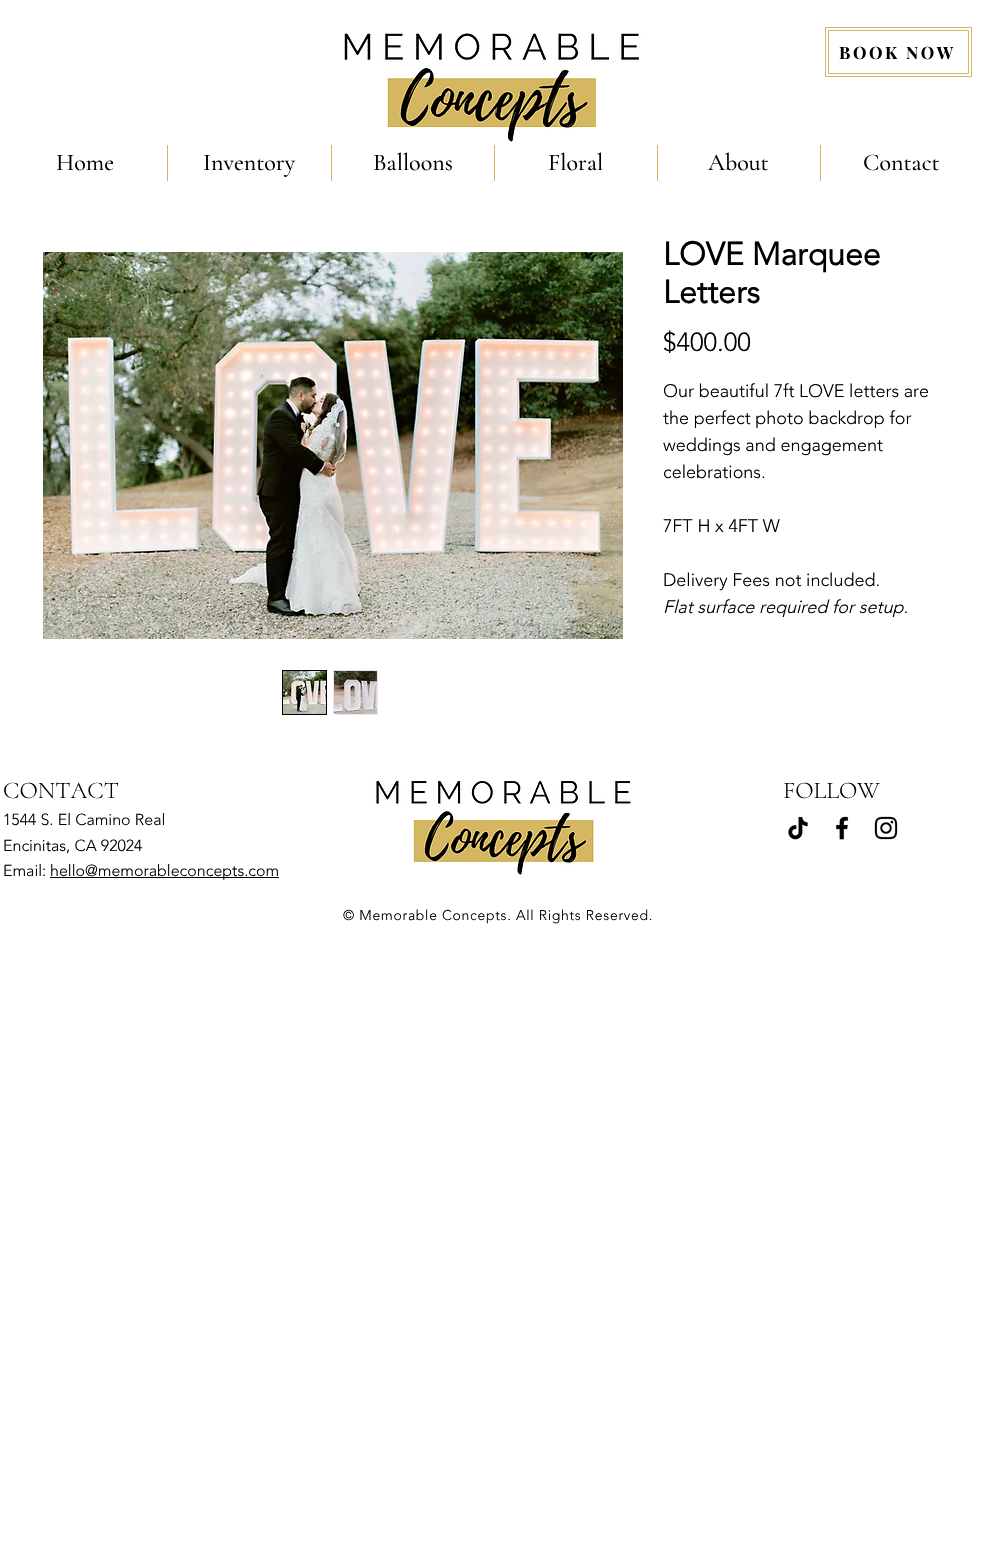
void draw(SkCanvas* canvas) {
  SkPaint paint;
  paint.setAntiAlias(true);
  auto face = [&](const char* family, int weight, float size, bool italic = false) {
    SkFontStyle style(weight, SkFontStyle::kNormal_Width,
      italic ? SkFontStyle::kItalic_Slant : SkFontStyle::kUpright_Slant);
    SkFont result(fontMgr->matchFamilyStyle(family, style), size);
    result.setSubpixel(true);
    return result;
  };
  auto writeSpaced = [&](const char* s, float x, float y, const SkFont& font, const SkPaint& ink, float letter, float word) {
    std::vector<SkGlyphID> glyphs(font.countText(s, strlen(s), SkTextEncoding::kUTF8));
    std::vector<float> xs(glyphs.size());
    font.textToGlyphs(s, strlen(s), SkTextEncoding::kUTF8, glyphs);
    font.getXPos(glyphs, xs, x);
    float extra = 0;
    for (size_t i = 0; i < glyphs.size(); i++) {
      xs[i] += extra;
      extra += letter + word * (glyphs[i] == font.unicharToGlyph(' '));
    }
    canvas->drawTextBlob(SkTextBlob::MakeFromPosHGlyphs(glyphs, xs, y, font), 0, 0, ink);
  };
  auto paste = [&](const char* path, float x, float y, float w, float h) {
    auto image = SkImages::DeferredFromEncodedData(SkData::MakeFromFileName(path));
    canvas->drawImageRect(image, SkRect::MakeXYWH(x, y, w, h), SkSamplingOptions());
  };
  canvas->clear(0xffffffff);
  paste("img/1.png", 344, 33, 297, 109);
  paint.setStroke(true);
  paint.setStrokeWidth(1);
  paint.setColor(0xffd4b760);
  canvas->drawRect(SkRect::MakeXYWH(825.5f, 27.5f, 146, 49), paint);
  canvas->drawRect(SkRect::MakeXYWH(828.5f, 30.5f, 140, 43), paint);
  paint.setStroke(false);
  {
    const struct { float x, y, w, h; SkColor color; } items[] = {
      {167, 145, 1, 36, 0xffd4b760},
      {331, 145, 1, 36, 0xffd4b760},
      {494, 145, 1, 36, 0xffd4b760},
      {657, 145, 1, 36, 0xffd4b760},
      {820, 145, 1, 36, 0xffd4b760},
    };
    for (auto [x, y, w, h, color] : items) {
      paint.setColor(color);
      canvas->drawRect(SkRect::MakeXYWH(x, y, w, h), paint);
    }
  }
  paste("img/2.png", 43, 252, 580, 387);
  paint.setStroke(true);
  paint.setColor(0xff000000);
  canvas->drawRect(SkRect::MakeXYWH(282.5f, 670.5f, 44, 44), paint);
  paste("img/3.png", 283, 671, 43, 43);
  paint.setStroke(false);
  paint.setColor(0xffe8e6e6);
  canvas->drawRect(SkRect::MakeXYWH(333, 670, 45, 45), paint);
  paste("img/4.png", 334, 671, 43, 43);
  paste("img/5.png", 374, 781, 257, 94);
  paint.setColor(0xff000000);
  canvas->drawRect(SkRect::MakeXYWH(50, 877, 229, 1), paint);
  paste("img/6.png", 788, 816, 20, 24);
  paste("img/7.png", 836, 816, 13, 24);
  paste("img/8.png", 874, 816, 24, 24);
  auto f0 = face("Playfair Display", 700, 17);
  writeSpaced("BOOK NOW", 839, 59, f0, paint, 2.5f, 0);
  auto f1 = face("Cormorant Garamond", 500, 24);
  {
    const struct { const char* s; float x, y; } items[] = {
      {"Home", 56, 170},
      {"Inventory", 203, 170},
      {"Balloons", 373, 170},
      {"Floral", 548, 170},
      {"About", 708, 170},
      {"Contact", 863, 170},
    };
    for (auto [s, x, y] : items) {
      canvas->drawString(s, x, y, f1, paint);
    }
  }
  auto f2 = face("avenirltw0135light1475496", 700, 32);
  canvas->drawString("LOVE Marquee", 663, 265, f2, paint);
  canvas->drawString("Letters", 663, 303, f2, paint);
  auto f3 = face("avenirltw0135light1475496", 300, 26);
  canvas->drawString("$400.00", 663, 351, f3, paint);
  auto f4 = face("avenirltw0135light1475496", 300, 18);
  {
    const struct { const char* s; float x, y; } items[] = {
      {"Our beautiful 7ft LOVE letters are", 663, 397},
      {"the perfect photo backdrop for", 663, 424},
      {"weddings and engagement", 663, 451},
      {"celebrations.", 663, 478},
      {"7FT H x 4FT W", 663, 532},
      {"Delivery Fees not included.", 663, 586},
    };
    for (auto [s, x, y] : items) {
      canvas->drawString(s, x, y, f4, paint);
    }
  }
  auto f5 = face("avenirltw0135light1475496", 300, 18, true);
  canvas->drawString("Flat surface required for setup.", 663, 613, f5, paint);
  auto f6 = face("Cormorant Garamond", 300, 24);
  canvas->drawString("CONTACT", 3, 798, f6, paint);
  canvas->drawString("FOLLOW", 783, 798, f6, paint);
  auto f7 = face("avenirltw0135light1475496", 300, 16);
  {
    const struct { const char* s; float x, y; } items[] = {
      {"1544 S. El Camino Real", 3, 825},
      {"Encinitas, CA 92024", 3, 851},
      {"Email:", 3, 876},
      {"hello@memorableconcepts.com", 50, 876},
    };
    for (auto [s, x, y] : items) {
      canvas->drawString(s, x, y, f7, paint);
    }
  }
  auto f8 = face("avenirltw0135light1475496", 300, 14);
  writeSpaced("© Memorable Concepts. All Rights Reserved.", 343, 920, f8, paint, 0.7f, 0);
}
